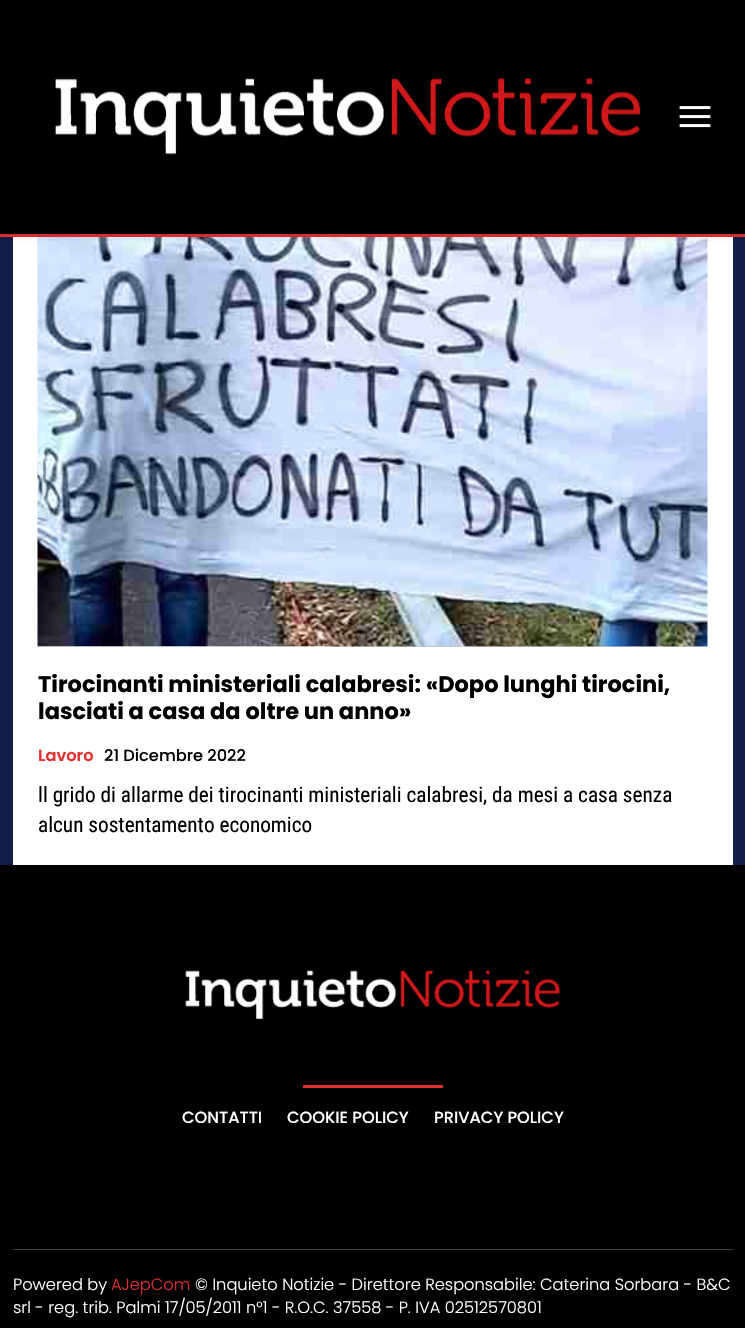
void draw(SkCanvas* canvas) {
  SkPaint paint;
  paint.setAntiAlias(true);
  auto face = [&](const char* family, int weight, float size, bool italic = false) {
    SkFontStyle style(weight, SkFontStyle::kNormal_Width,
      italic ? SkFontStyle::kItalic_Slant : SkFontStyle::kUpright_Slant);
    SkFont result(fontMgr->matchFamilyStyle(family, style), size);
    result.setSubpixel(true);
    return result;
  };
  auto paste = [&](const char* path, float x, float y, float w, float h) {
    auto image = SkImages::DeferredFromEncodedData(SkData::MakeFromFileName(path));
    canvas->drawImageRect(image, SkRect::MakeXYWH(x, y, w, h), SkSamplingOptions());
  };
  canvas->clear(0xff131f49);
  paint.setColor(0xffe52e2e);
  canvas->drawRect(SkRect::MakeXYWH(0, 234, 745, 3), paint);
  paint.setColor(0xff000000);
  canvas->drawRect(SkRect::MakeXYWH(0, 0, 745, 234), paint);
  paste("img/1.png", 55, 78, 586, 77);
  paste("img/2.png", 679, 106, 32, 22);
  paint.setColor(0xffffffff);
  canvas->drawRect(SkRect::MakeXYWH(13, 237, 720, 628), paint);
  paste("img/3.png", 37, 237, 671, 410);
  canvas->save();
  canvas->clipRect(SkRect::MakeXYWH(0, 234, 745, 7));
  paint.setColor(0x17000000);
  paint.setMaskFilter(SkMaskFilter::MakeBlur(kNormal_SkBlurStyle, 6));
  canvas->drawRect(SkRect::MakeXYWH(0, 3, 745, 233), paint);
  paint.setMaskFilter(nullptr);
  canvas->restore();
  paint.setColor(0xff000000);
  canvas->drawRect(SkRect::MakeXYWH(0, 865, 745, 463), paint);
  paste("img/4.png", 185, 970, 376, 50);
  paint.setColor(0xffe52e2e);
  canvas->drawRect(SkRect::MakeXYWH(303, 1085, 140, 3), paint);
  paint.setColor(0xff404040);
  canvas->drawRect(SkRect::MakeXYWH(13, 1249, 720, 1), paint);
  auto f0 = face("Poppins", 700, 22.5f);
  paint.setColor(0xff000000);
  canvas->drawString("Tirocinanti ministeriali calabresi: «Dopo lunghi tirocini,", 38, 692, f0, paint);
  canvas->drawString("lasciati a casa da oltre un anno»", 38, 719, f0, paint);
  auto f1 = face("Poppins", 600, 16.25f);
  paint.setColor(0xffe52e2e);
  canvas->drawString("Lavoro", 38, 761, f1, paint);
  auto f2 = face("Poppins", 500, 16.25f);
  paint.setColor(0xff000000);
  canvas->drawString("21 Dicembre 2022", 104, 761, f2, paint);
  auto f3 = face("Roboto Condensed", 400, 21.25f);
  canvas->drawString("ll grido di allarme dei tirocinanti ministeriali calabresi, da mesi a casa senza", 38, 802, f3, paint);
  canvas->drawString("alcun sostentamento economico", 38, 832, f3, paint);
  paint.setColor(0xffffffff);
  {
    const struct { const char* s; float x, y; } items[] = {
      {"CONTATTI", 182, 1123},
      {"COOKIE POLICY", 287, 1123},
      {"PRIVACY POLICY", 434, 1123},
    };
    for (auto [s, x, y] : items) {
      canvas->drawString(s, x, y, f2, paint);
    }
  }
  auto f4 = face("Poppins", 300, 16.25f);
  canvas->drawString("Powered by", 13, 1290, f4, paint);
  paint.setColor(0xffe52e2e);
  canvas->drawString("AJepCom", 111, 1290, f4, paint);
  paint.setColor(0xffffffff);
  canvas->drawString("© Inquieto Notizie - Direttore Responsabile: Caterina Sorbara - B&C", 195, 1290, f4, paint);
  canvas->drawString("srl - reg. trib. Palmi 17/05/2011 n°1 - R.O.C. 37558 - P. IVA 02512570801", 13, 1313, f4, paint);
}
